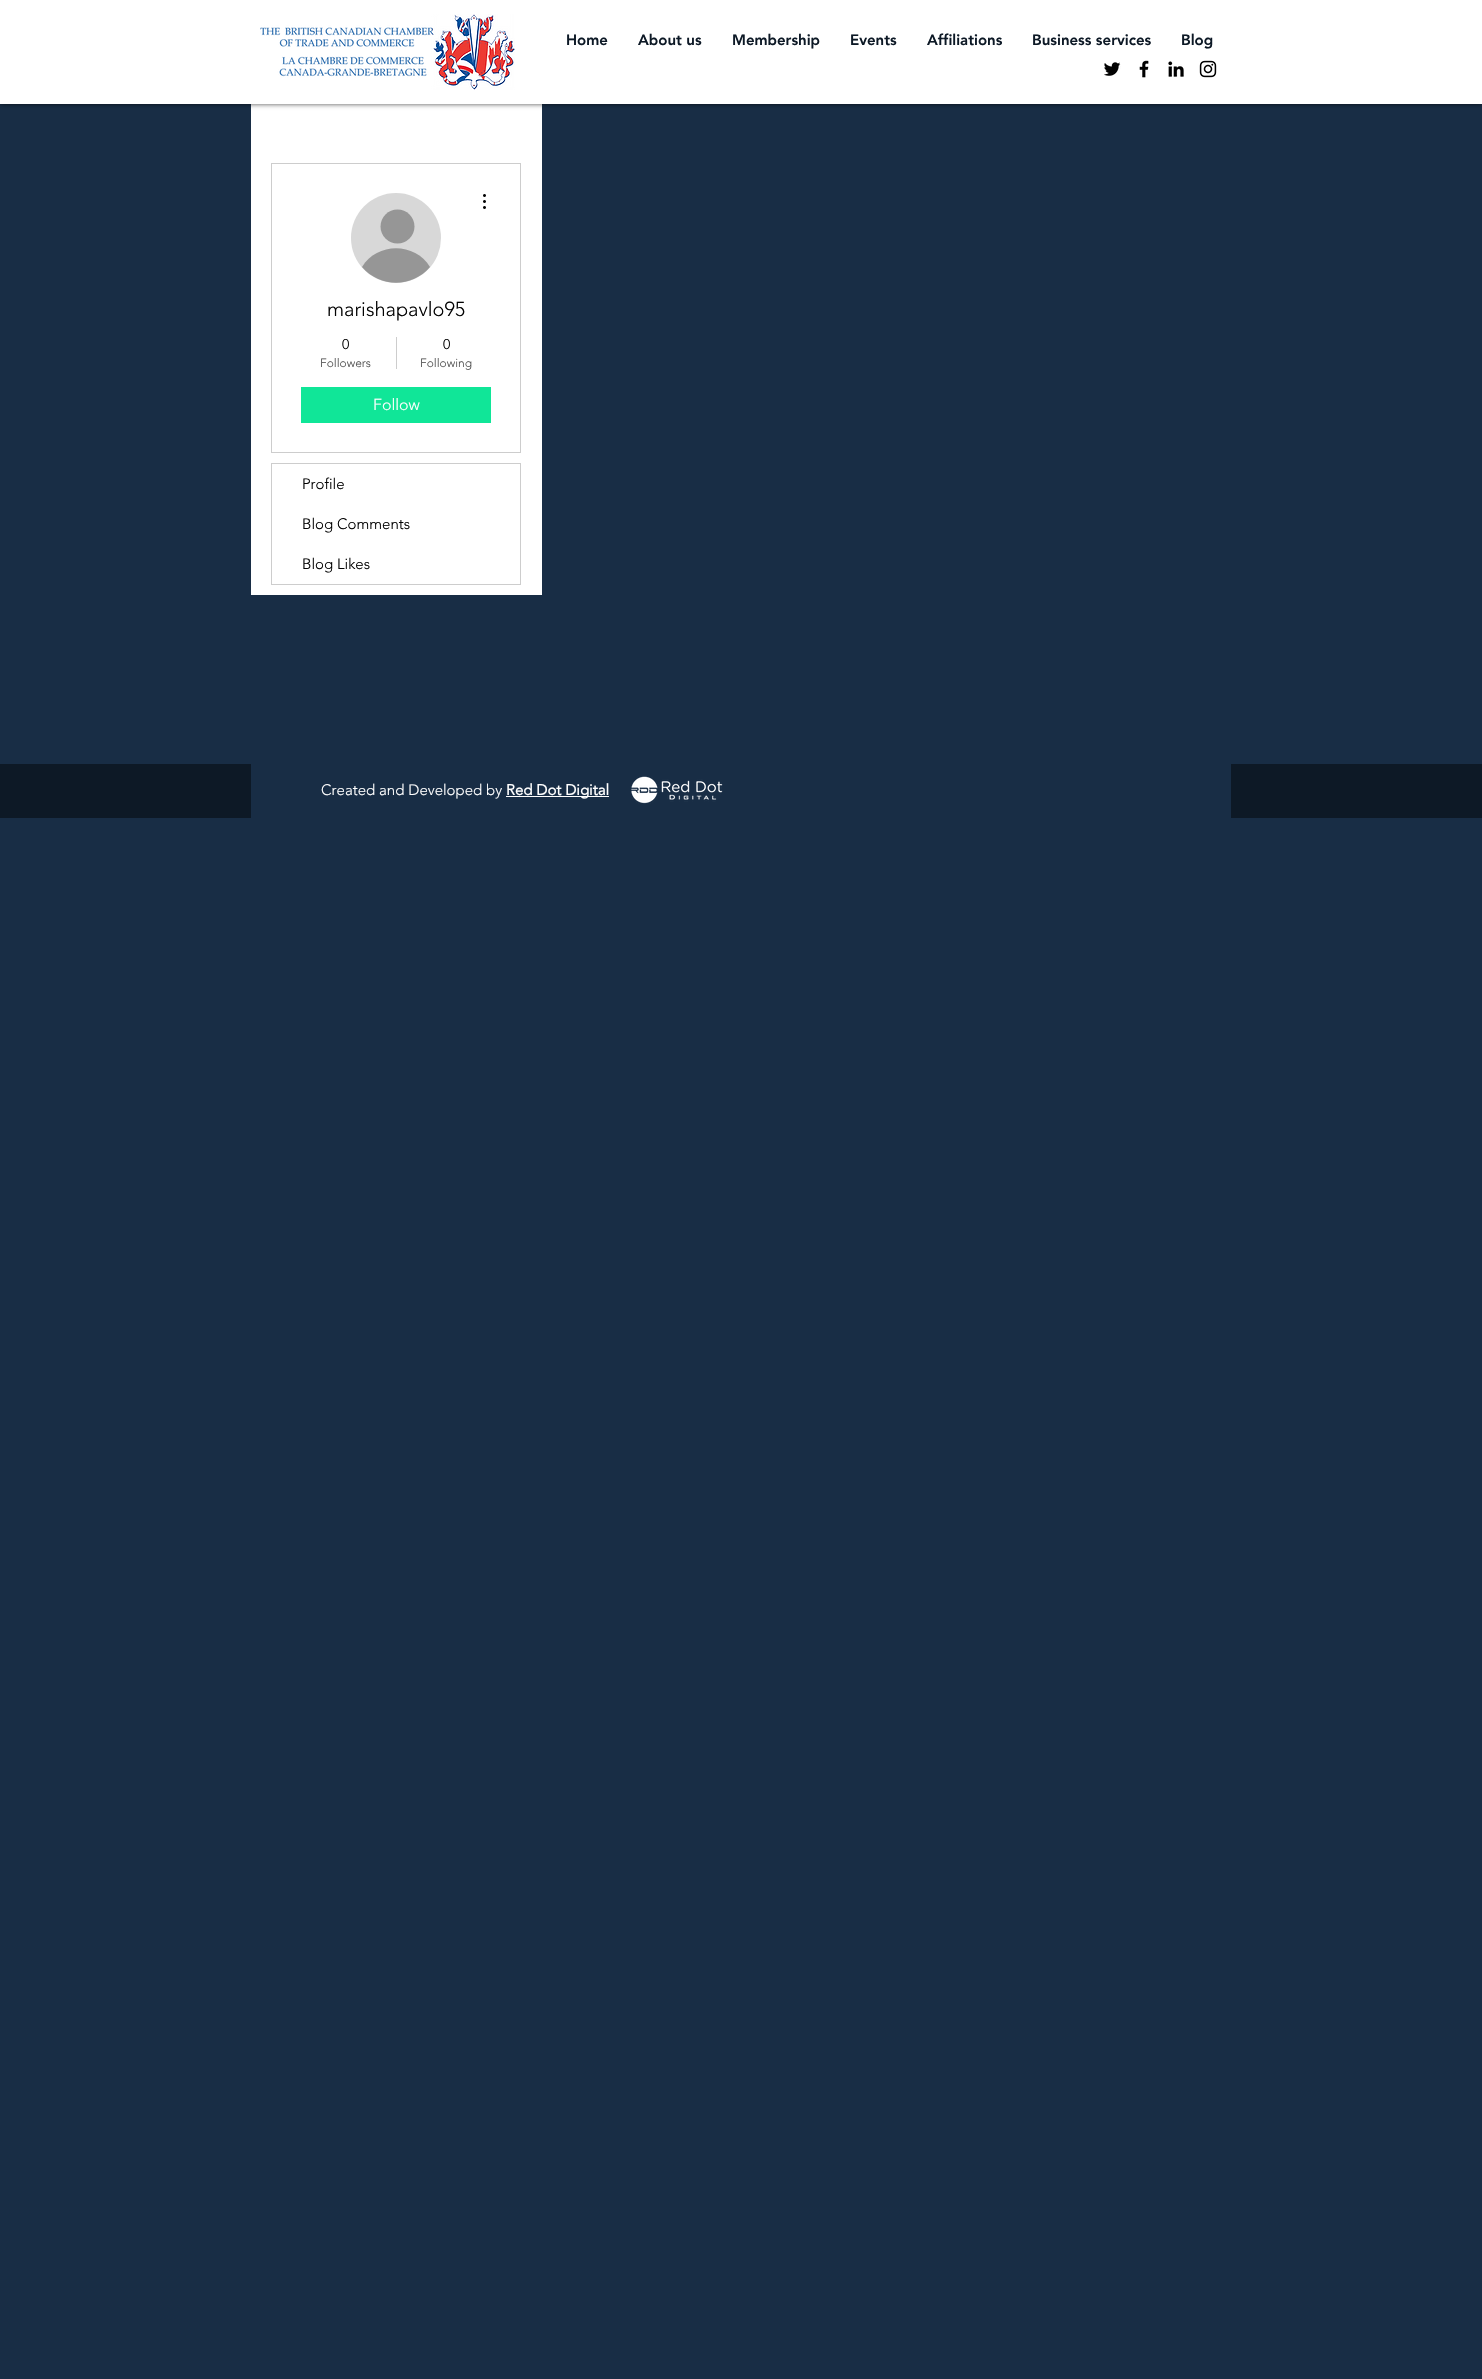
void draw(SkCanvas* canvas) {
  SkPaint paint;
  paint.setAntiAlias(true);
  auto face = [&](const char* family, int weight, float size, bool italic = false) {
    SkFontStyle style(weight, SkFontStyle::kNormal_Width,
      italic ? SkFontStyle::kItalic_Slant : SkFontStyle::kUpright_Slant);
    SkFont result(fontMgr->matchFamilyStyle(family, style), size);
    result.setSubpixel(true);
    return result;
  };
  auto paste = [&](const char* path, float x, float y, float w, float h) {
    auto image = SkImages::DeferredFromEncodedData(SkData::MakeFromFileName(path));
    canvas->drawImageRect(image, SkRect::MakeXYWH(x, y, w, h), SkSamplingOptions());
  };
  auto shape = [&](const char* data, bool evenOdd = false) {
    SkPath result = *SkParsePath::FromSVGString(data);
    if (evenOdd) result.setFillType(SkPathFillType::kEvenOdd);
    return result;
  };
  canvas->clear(0xff182d45);
  paint.setColor(0xffffffff);
  canvas->drawRect(SkRect::MakeXYWH(251, 104, 291, 491), paint);
  paint.setColor(0xb3000000);
  paint.setMaskFilter(SkMaskFilter::MakeBlur(kNormal_SkBlurStyle, 2.5f));
  canvas->drawRect(SkRect::MakeXYWH(0, 0, 1482, 104), paint);
  paint.setMaskFilter(nullptr);
  paint.setColor(0xffffffff);
  canvas->drawRect(SkRect::MakeXYWH(0, 0, 1482, 104), paint);
  paste("img/1.png", 260, 14, 255, 76);
  paste("img/2.png", 1104, 62, 17, 14);
  paste("img/3.png", 1139, 60, 10, 18);
  paste("img/4.png", 1168, 61, 16, 16);
  paste("img/5.png", 1199, 60, 18, 18);
  paint.setStroke(true);
  paint.setStrokeWidth(1);
  paint.setColor(0xffcdcdcd);
  canvas->drawRect(SkRect::MakeXYWH(271.5f, 163.5f, 249, 289), paint);
  paint.setStroke(false);
  paint.setColor(0xffd8d8d8);
  canvas->drawCircle(396, 238, 45, paint);
  paint.setColor(0xff969696);
  canvas->drawCircle(397.5f, 226.5f, 17, paint);
  canvas->drawPath(shape("M430 267C412 288 380 288 362 267C377 242 415 242 430 267Z"), paint);
  paste("img/6.png", 483, 194, 3, 15);
  paint.setColor(0xffcdcdcd);
  canvas->drawRect(SkRect::MakeXYWH(396, 337, 1, 32), paint);
  paint.setColor(0xff10e698);
  canvas->drawRect(SkRect::MakeXYWH(301, 387, 190, 36), paint);
  paint.setStroke(true);
  paint.setColor(0xffcdcdcd);
  canvas->drawRect(SkRect::MakeXYWH(271.5f, 463.5f, 249, 121), paint);
  paint.setStroke(false);
  {
    const struct { float x, y, w, h; SkColor color; } items[] = {
      {0, 764, 1482, 54, 0xff0d1926},
      {251, 764, 980, 54, 0xff182d45},
      {506, 796, 103, 1, 0xffffffff},
    };
    for (auto [x, y, w, h, color] : items) {
      paint.setColor(color);
      canvas->drawRect(SkRect::MakeXYWH(x, y, w, h), paint);
    }
  }
  paste("img/7.png", 631, 776, 92, 28);
  auto f0 = face("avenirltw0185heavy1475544", 900, 15);
  paint.setColor(0xff0d1926);
  {
    const struct { const char* s; float x, y; } items[] = {
      {"Home", 566, 45},
      {"About us", 638, 45},
      {"Membership", 732, 45},
      {"Events", 850, 45},
      {"Affiliations", 927, 45},
      {"Business services", 1032, 45},
      {"Blog", 1181, 45},
    };
    for (auto [s, x, y] : items) {
      canvas->drawString(s, x, y, f0, paint);
    }
  }
  auto f1 = face("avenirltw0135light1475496", 300, 20);
  paint.setColor(0xff030303);
  canvas->drawString("marishapavlo95", 327, 316, f1, paint);
  auto f2 = face("avenirltw0135light1475496", 300, 14);
  canvas->drawString("0", 342, 349, f2, paint);
  auto f3 = face("avenirltw0135light1475496", 300, 12);
  paint.setColor(0xff4f4f4f);
  canvas->drawString("Followers", 320, 367, f3, paint);
  paint.setColor(0xff030303);
  canvas->drawString("0", 443, 349, f2, paint);
  paint.setColor(0xff4f4f4f);
  canvas->drawString("Following", 420, 367, f3, paint);
  auto f4 = face("avenirltw0135light1475496", 300, 16);
  paint.setColor(0xffffffff);
  canvas->drawString("Follow", 373, 410, f4, paint);
  auto f5 = face("avenirltw0135light1475496", 300, 15);
  paint.setColor(0xff030303);
  {
    const struct { const char* s; float x, y; } items[] = {
      {"Profile", 302, 489},
      {"Blog Comments", 302, 529},
      {"Blog Likes", 302, 569},
    };
    for (auto [s, x, y] : items) {
      canvas->drawString(s, x, y, f5, paint);
    }
  }
  paint.setColor(0xffffffff);
  canvas->drawString("Created and Developed by", 321, 795, f5, paint);
  auto f6 = face("avenirltw0135light1475496", 700, 15);
  canvas->drawString("Red Dot Digital", 506, 795, f6, paint);
}
